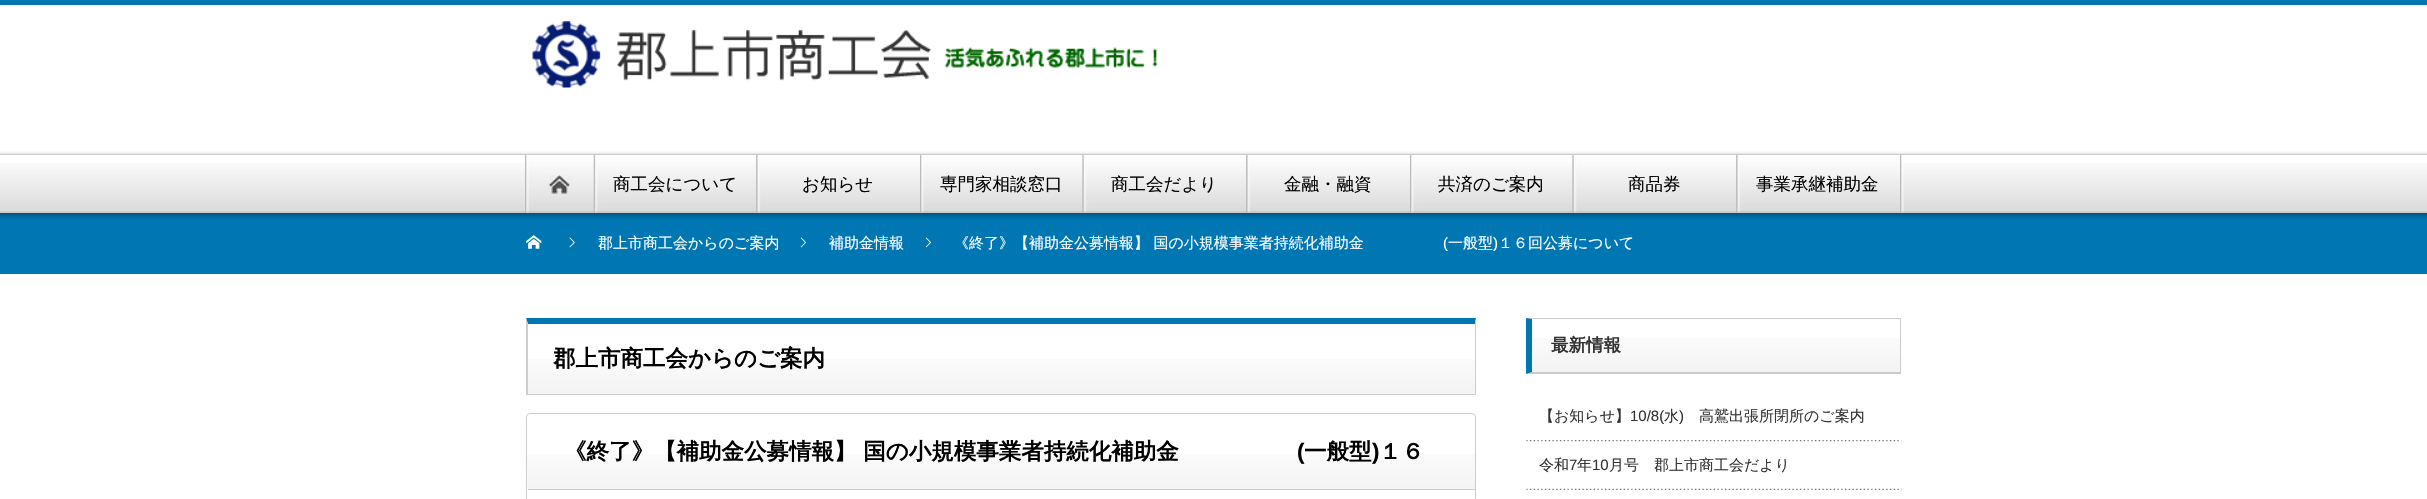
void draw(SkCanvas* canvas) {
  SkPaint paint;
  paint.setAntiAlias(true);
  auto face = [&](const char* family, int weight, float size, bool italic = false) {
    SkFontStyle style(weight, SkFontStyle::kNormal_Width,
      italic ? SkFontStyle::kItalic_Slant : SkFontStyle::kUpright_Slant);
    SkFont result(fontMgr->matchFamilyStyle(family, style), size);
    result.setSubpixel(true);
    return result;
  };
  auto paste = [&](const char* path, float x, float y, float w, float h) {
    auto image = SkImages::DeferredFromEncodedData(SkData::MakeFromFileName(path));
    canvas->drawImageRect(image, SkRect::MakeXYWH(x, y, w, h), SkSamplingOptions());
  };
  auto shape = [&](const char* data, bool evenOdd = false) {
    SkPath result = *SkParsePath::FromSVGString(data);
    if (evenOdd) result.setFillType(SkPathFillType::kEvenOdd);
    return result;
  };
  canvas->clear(0xffffffff);
  paste("img/1.png", 0, 163, 2427, 50);
  paint.setColor(0xff0077b3);
  canvas->drawRect(SkRect::MakeXYWH(0, 0, 2427, 5), paint);
  paste("img/2.png", 0, 151, 2427, 4);
  paste("img/3.png", 532, 21, 626, 67);
  canvas->drawRect(SkRect::MakeXYWH(0, 213, 2427, 61), paint);
  paste("img/16.png", 0, 212, 2427, 8);
  paste("img/4.png", 525, 155, 69, 58);
  paste("img/5.png", 525, 155, 69, 58);
  paste("img/6.png", 548, 175, 22, 19);
  paste("img/7.png", 1900, 155, 4, 58);
  paste("img/8.png", 593, 155, 164, 58);
  paste("img/9.png", 595, 155, 161, 57);
  paste("img/10.png", 756, 155, 164, 58);
  paste("img/11.png", 756, 155, 164, 57);
  paste("img/12.png", 920, 155, 163, 58);
  paste("img/13.png", 921, 155, 161, 57);
  paste("img/14.png", 1082, 155, 165, 58);
  paste("img/15.png", 1082, 155, 164, 57);
  paste("img/10.png", 1246, 155, 164, 58);
  paste("img/11.png", 1246, 155, 164, 57);
  paste("img/12.png", 1410, 155, 163, 58);
  paste("img/13.png", 1411, 155, 161, 57);
  paste("img/14.png", 1572, 155, 165, 58);
  paste("img/15.png", 1572, 155, 164, 57);
  paste("img/10.png", 1736, 155, 164, 58);
  paste("img/11.png", 1736, 155, 164, 57);
  paste("img/17.png", 526, 235, 16, 14);
  paste("img/18.png", 569, 237, 6, 11);
  paste("img/19.png", 800, 237, 6, 11);
  paste("img/19.png", 925, 237, 6, 11);
  paste("img/20.png", 528, 359, 947, 35);
  canvas->drawPath(shape("M526 318H1476L1475 324H528Z"), paint);
  paint.setColor(0xffcccccc);
  canvas->drawPath(shape("M1476 318V395L1475 394V324Z"), paint);
  canvas->drawRect(SkRect::MakeXYWH(526, 394, 950, 1), paint);
  canvas->drawPath(shape("M526 395V318L528 324V394Z"), paint);
  paint.setStroke(true);
  paint.setStrokeWidth(1);
  canvas->drawRoundRect(SkRect::MakeXYWH(526.5f, 413.5f, 949, 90), 3.5f, 3.5f, paint);
  paste("img/21.png", 527, 454, 948, 35);
  paint.setStroke(false);
  canvas->drawRect(SkRect::MakeXYWH(528, 489, 947, 1), paint);
  paste("img/22.png", 1529, 338, 371, 35);
  canvas->drawPath(shape("M1526 318H1901L1900 319H1532Z"), paint);
  canvas->drawRect(SkRect::MakeXYWH(1900, 318, 1, 56), paint);
  canvas->drawPath(shape("M1901 374H1526L1532 372H1900Z"), paint);
  paint.setColor(0xff0077b3);
  canvas->drawPath(shape("M1526 374V318L1532 319V372Z"), paint);
  paste("img/23.png", 1526, 440, 376, 2);
  paste("img/24.png", 1526, 488, 376, 2);
  auto f0 = face("WenQuanYi Zen Hei", 500, 17.5f);
  paint.setColor(0xff000000);
  {
    const struct { const char* s; float x, y; } items[] = {
      {"商工会について", 613, 190},
      {"お知らせ", 802, 190},
      {"専門家相談窓口", 940, 190},
      {"商工会だより", 1111, 190},
      {"金融・融資", 1284, 190},
      {"共済のご案内", 1438, 190},
      {"商品券", 1628, 190},
      {"事業承継補助金", 1756, 190},
    };
    for (auto [s, x, y] : items) {
      canvas->drawString(s, x, y, f0, paint);
    }
  }
  auto f1 = face("WenQuanYi Zen Hei", 500, 15);
  paint.setColor(0xffffffff);
  {
    const struct { const char* s; float x, y; } items[] = {
      {"郡上市商工会からのご案内", 598, 248},
      {"補助金情報", 829, 248},
      {"《終了》【補助金公募情報】 国の小規模事業者持続化補助金", 954, 248},
    };
    for (auto [s, x, y] : items) {
      canvas->drawString(s, x, y, f1, paint);
    }
  }
  auto f2 = face("Liberation Sans", 400, 15);
  canvas->drawString("(", 1443, 248, f2, paint);
  canvas->drawString("一般型", 1448, 248, f1, paint);
  canvas->drawString(")", 1493, 248, f2, paint);
  canvas->drawString("１６回公募について", 1498, 248, f1, paint);
  auto f3 = face("WenQuanYi Zen Hei", 700, 22.5f);
  paint.setColor(0xff000000);
  canvas->drawString("郡上市商工会からのご案内", 553, 366, f3, paint);
  canvas->drawString("《終了》【補助金公募情報】 国の小規模事業者持続化補助金", 564, 459, f3, paint);
  auto f4 = face("Liberation Sans", 700, 22.5f);
  canvas->drawString("(", 1297, 459, f4, paint);
  canvas->drawString("一般型", 1304, 459, f3, paint);
  canvas->drawString(")", 1372, 459, f4, paint);
  canvas->drawString("１６", 1379, 459, f3, paint);
  auto f5 = face("WenQuanYi Zen Hei", 700, 17.5f);
  paint.setColor(0xff333333);
  canvas->drawString("最新情報", 1551, 351, f5, paint);
  canvas->drawString("【お知らせ】", 1539, 421, f1, paint);
  canvas->drawString("10/8(", 1630, 421, f2, paint);
  canvas->drawString("水", 1664, 421, f1, paint);
  canvas->drawString(")", 1679, 421, f2, paint);
  canvas->drawString("高鷲出張所閉所のご案内", 1699, 421, f1, paint);
  canvas->drawString("令和", 1539, 470, f1, paint);
  canvas->drawString("7", 1569, 470, f2, paint);
  canvas->drawString("年", 1577, 470, f1, paint);
  canvas->drawString("10", 1592, 470, f2, paint);
  canvas->drawString("月号　郡上市商工会だより", 1609, 470, f1, paint);
}
